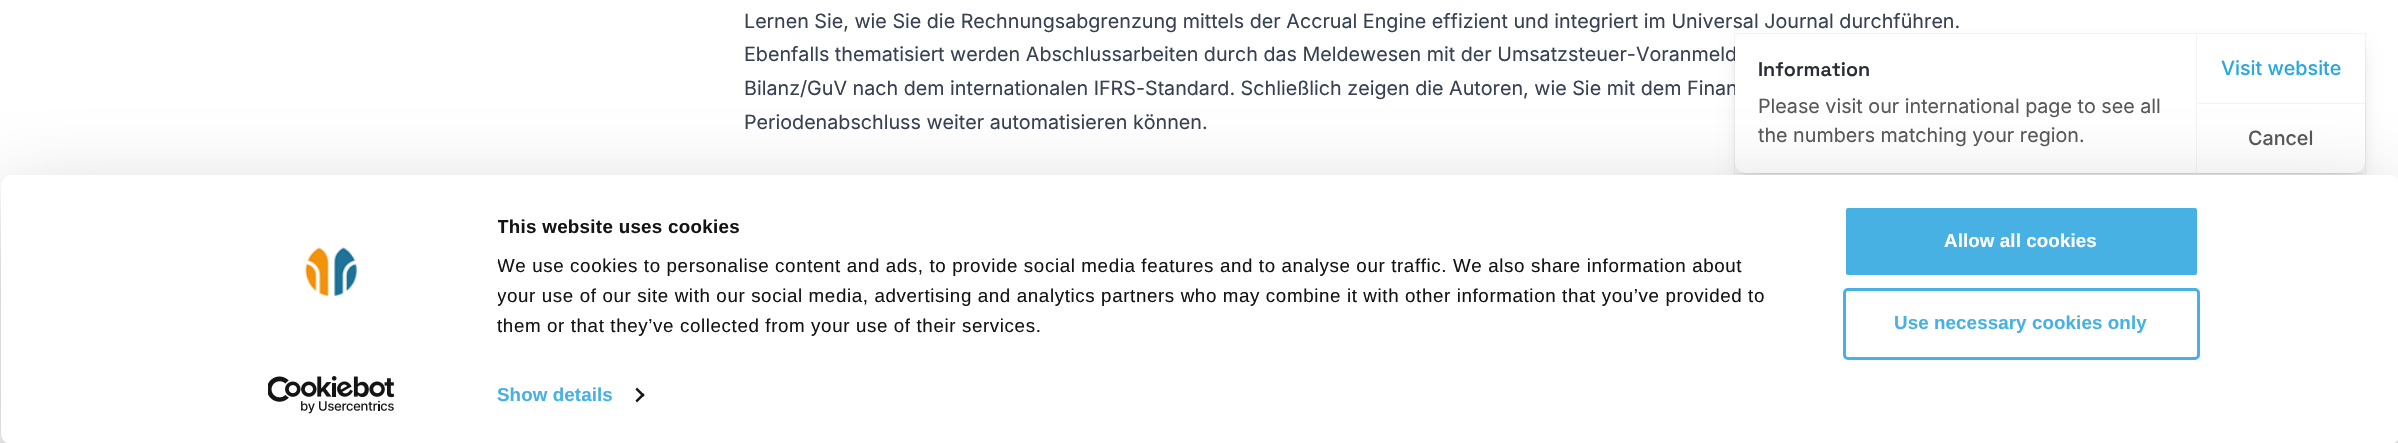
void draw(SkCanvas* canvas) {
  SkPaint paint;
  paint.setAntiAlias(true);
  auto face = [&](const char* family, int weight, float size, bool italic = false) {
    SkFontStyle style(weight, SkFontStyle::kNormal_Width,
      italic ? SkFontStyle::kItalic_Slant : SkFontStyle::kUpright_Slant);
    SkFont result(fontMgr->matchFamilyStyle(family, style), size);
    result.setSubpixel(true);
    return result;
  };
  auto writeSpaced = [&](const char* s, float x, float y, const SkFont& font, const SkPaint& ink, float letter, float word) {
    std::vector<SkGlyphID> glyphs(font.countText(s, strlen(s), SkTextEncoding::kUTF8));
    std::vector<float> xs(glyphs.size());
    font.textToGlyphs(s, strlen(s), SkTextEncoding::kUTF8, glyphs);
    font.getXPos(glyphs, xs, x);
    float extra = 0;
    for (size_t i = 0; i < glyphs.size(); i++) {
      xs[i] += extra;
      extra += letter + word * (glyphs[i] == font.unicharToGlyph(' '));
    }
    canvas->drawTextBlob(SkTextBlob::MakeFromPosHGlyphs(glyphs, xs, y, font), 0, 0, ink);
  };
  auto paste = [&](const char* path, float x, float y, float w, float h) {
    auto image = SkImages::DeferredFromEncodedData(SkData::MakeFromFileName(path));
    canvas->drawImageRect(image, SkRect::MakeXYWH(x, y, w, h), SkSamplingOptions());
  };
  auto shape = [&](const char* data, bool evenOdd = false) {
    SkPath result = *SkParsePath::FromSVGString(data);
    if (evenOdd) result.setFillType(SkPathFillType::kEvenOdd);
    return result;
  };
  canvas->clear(0xffffffff);
  paint.setColor(0x0d000000);
  paint.setMaskFilter(SkMaskFilter::MakeBlur(kNormal_SkBlurStyle, 4));
  canvas->drawRoundRect(SkRect::MakeXYWH(1738, 41, 625, 134), 9, 9, paint);
  paint.setMaskFilter(nullptr);
  paint.setColor(0x1a000000);
  paint.setMaskFilter(SkMaskFilter::MakeBlur(kNormal_SkBlurStyle, 9.5f));
  canvas->drawRoundRect(SkRect::MakeXYWH(1739, 50, 622, 131), 8, 8, paint);
  paint.setMaskFilter(nullptr);
  auto f0 = face("Inter", 400, 19.7f);
  paint.setColor(0xff374151);
  {
    const struct { const char* s; float x, y; } items[] = {
      {"Lernen Sie, wie Sie die Rechnungsabgrenzung mittels der Accrual Engine effizient und integriert im Universal Journal durchführen.", 744, 28},
      {"Ebenfalls thematisiert werden Abschlussarbeiten durch das Meldewesen mit der Umsatzsteuer-Voranmeld", 744, 61},
      {"Bilanz/GuV nach dem internationalen IFRS-Standard. Schließlich zeigen die Autoren, wie Sie mit dem Finan", 744, 95},
      {"Periodenabschluss weiter automatisieren können.", 744, 129},
    };
    for (auto [s, x, y] : items) {
      canvas->drawString(s, x, y, f0, paint);
    }
  }
  paint.setStroke(true);
  paint.setStrokeWidth(1);
  paint.setColor(0x0d22292f);
  canvas->drawRect(SkRect::MakeXYWH(1734.5f, 33.5f, 631, 140), paint);
  paint.setStroke(false);
  paint.setColor(0xffffffff);
  canvas->drawRoundRect(SkRect::MakeXYWH(1735, 34, 630, 139), 11, 11, paint);
  auto f1 = face("Space Grotesk", 600, 19.7f);
  paint.setColor(0xff282e36);
  canvas->drawString("Information", 1758, 76, f1, paint);
  paint.setColor(0xff58585a);
  canvas->drawString("Please visit our international page to see all", 1758, 113, f0, paint);
  canvas->drawString("the numbers matching your region.", 1758, 142, f0, paint);
  paint.setColor(0xfff3f3f3);
  canvas->drawRect(SkRect::MakeXYWH(2196, 34, 1, 139), paint);
  auto f2 = face("Inter", 500, 19.7f);
  paint.setColor(0xff28a8df);
  canvas->drawString("Visit website", 2221, 75, f2, paint);
  paint.setColor(0xfff3f3f3);
  canvas->drawRect(SkRect::MakeXYWH(2198, 103, 167, 1), paint);
  paint.setColor(0xff58585a);
  canvas->drawString("Cancel", 2248, 145, f2, paint);
  paint.setColor(0x4d000000);
  paint.setMaskFilter(SkMaskFilter::MakeBlur(kNormal_SkBlurStyle, 44));
  canvas->drawRoundRect(SkRect::MakeXYWH(1, 213, 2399, 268), 10, 10, paint);
  paint.setMaskFilter(nullptr);
  paint.setColor(0xffffffff);
  canvas->drawRoundRect(SkRect::MakeXYWH(1, 175, 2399, 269), 10, 10, paint);
  paste("img/1.png", 305, 247, 52, 50);
  paste("img/2.png", 268, 376, 127, 38);
  canvas->save();
  canvas->clipRect(SkRect::MakeXYWH(498, 213, 1310, 128));
  auto f3 = face("Liberation Sans", 700, 18.75f);
  paint.setColor(0xff141414);
  writeSpaced("This website uses cookies", 497, 233, f3, paint, 0.3f, 0);
  auto f4 = face("Liberation Sans", 400, 18.75f);
  writeSpaced("We use cookies to personalise content and ads, to provide social media features and to analyse our traffic. We also share information about", 497, 272, f4, paint, 0.62f, 0);
  writeSpaced("your use of our site with our social media, advertising and analytics partners who may combine it with other information that you’ve provided to", 497, 302, f4, paint, 0.62f, 0);
  canvas->restore();
  writeSpaced("them or that they’ve collected from your use of their services.", 497, 332, f4, paint, 0.62f, 0);
  paint.setColor(0xff47b1e3);
  writeSpaced("Show details", 497, 401, f3, paint, 0.1f, 0);
  paint.setColor(0xff141414);
  canvas->drawPath(shape("M637 387.5L644.5 395L643 397L635.5 389.5Z"), paint);
  canvas->drawPath(shape("M643 393L644.5 395L637 402.5L635.5 400.5Z"), paint);
  paint.setColor(0xff47b1e3);
  canvas->drawRoundRect(SkRect::MakeXYWH(1844.5f, 206.5f, 354, 70), 3.5f, 3.5f, paint);
  paint.setStroke(true);
  paint.setStrokeWidth(3);
  paint.setColor(0xffffffff);
  canvas->drawRoundRect(SkRect::MakeXYWH(1844.5f, 206.5f, 354, 70), 3.5f, 3.5f, paint);
  paint.setStroke(false);
  writeSpaced("Allow all cookies", 1944, 247, f3, paint, 0.1f, 0);
  paint.setStroke(true);
  paint.setColor(0xff47b1e3);
  canvas->drawRoundRect(SkRect::MakeXYWH(1844.5f, 289.5f, 354, 69), 3.5f, 3.5f, paint);
  paint.setStroke(false);
  writeSpaced("Use necessary cookies only", 1894, 329, f3, paint, 0.1f, 0);
}
